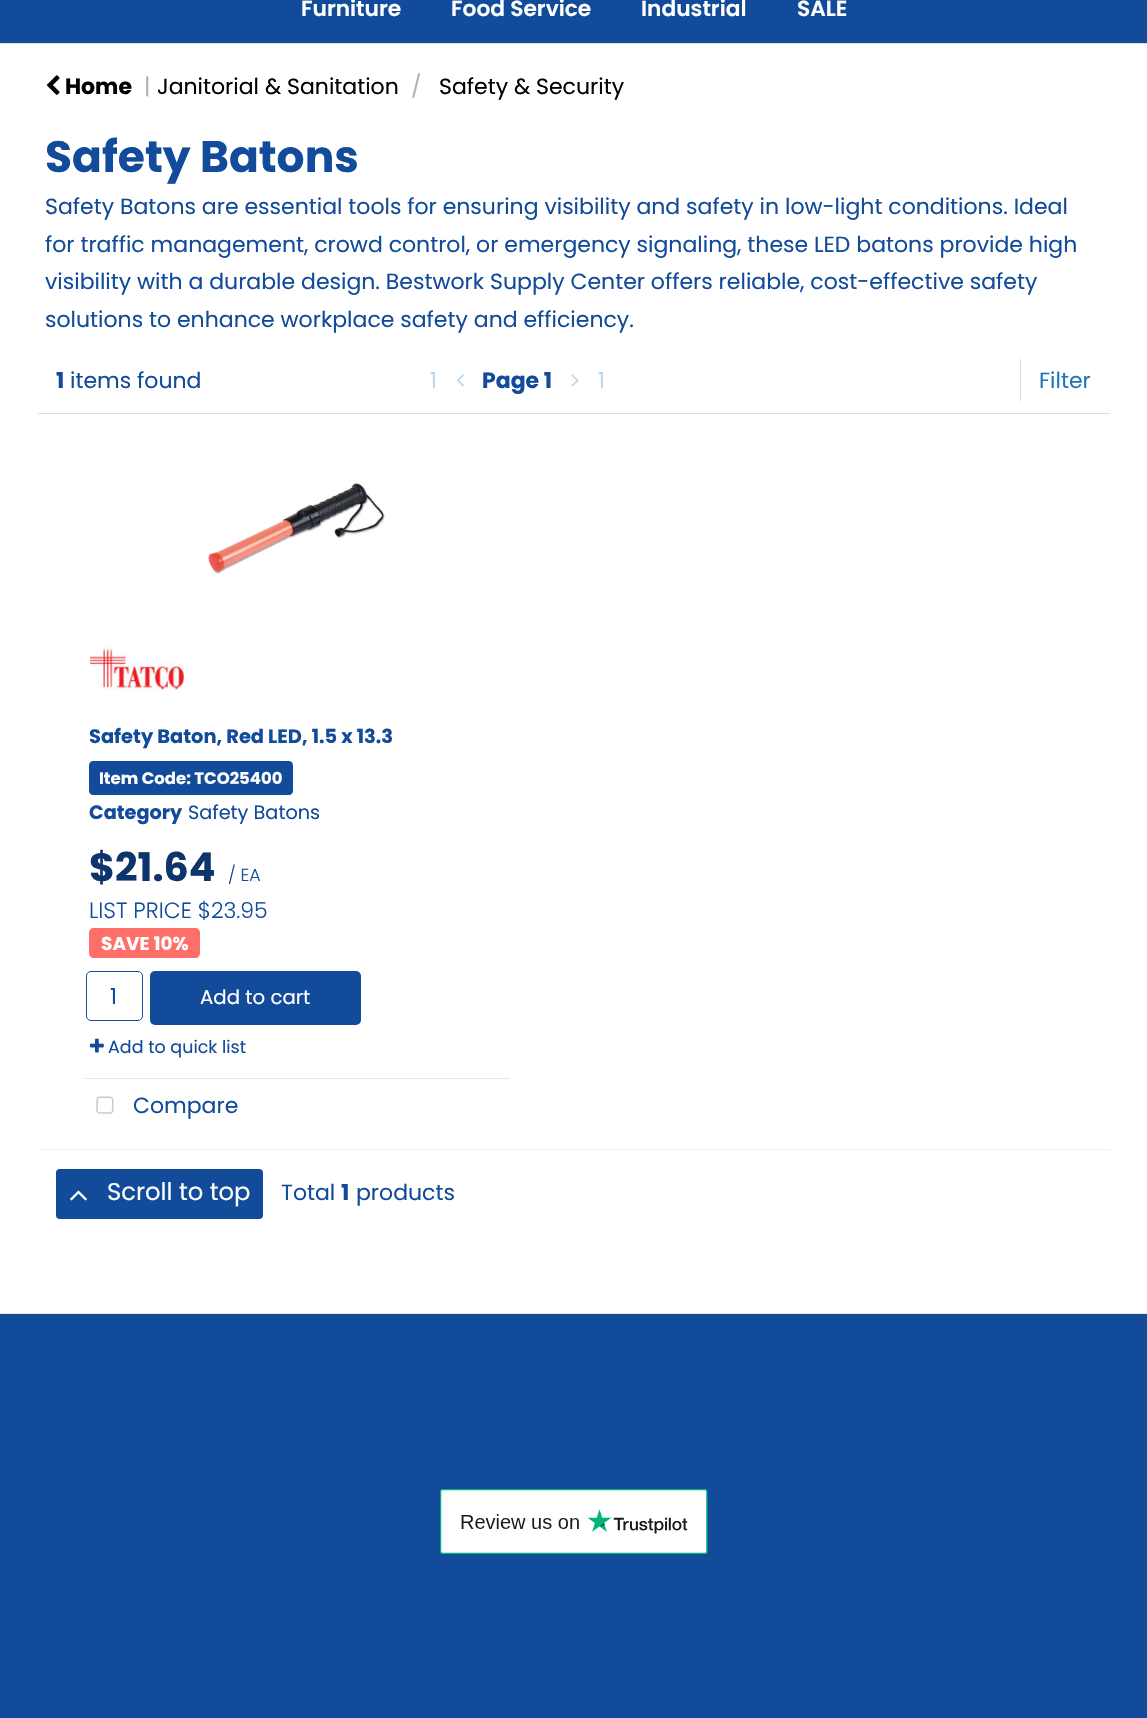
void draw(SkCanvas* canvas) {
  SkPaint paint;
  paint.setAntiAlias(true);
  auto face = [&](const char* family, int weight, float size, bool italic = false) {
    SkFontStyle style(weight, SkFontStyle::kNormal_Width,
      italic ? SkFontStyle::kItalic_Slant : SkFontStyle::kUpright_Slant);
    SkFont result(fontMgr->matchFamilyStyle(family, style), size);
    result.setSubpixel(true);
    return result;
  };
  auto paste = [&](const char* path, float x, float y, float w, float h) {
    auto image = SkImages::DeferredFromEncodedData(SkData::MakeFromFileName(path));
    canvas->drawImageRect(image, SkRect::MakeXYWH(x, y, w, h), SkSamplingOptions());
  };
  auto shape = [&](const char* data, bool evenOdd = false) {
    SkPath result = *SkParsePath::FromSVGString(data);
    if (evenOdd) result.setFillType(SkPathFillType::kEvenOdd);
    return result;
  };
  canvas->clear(0xffffffff);
  paint.setColor(0xff124b9a);
  canvas->drawRect(SkRect::MakeXYWH(0, 0, 1147, 43), paint);
  paint.setColor(0xffe4e4e4);
  canvas->drawRect(SkRect::MakeXYWH(0, 43, 1147, 1), paint);
  paste("img/1.png", 46, 75, 14, 20);
  paste("img/2.png", 456, 374, 8, 13);
  paste("img/3.png", 571, 374, 8, 13);
  paint.setColor(0xffdddddd);
  canvas->drawRect(SkRect::MakeXYWH(1020, 359, 1, 42), paint);
  canvas->drawRect(SkRect::MakeXYWH(38, 413, 1072, 1), paint);
  paste("img/4.png", 208, 483, 177, 91);
  paste("img/5.png", 90, 645, 94, 46);
  paint.setColor(0xff124b9a);
  canvas->drawPath(shape("M93 761H186V795H93C91 795 89 793 89 791V765C89 763 91 761 93 761Z"), paint);
  canvas->drawPath(shape("M186 761H289C291 761 293 763 293 765V791C293 793 291 795 289 795H186Z"), paint);
  paint.setColor(0xffff6f69);
  canvas->drawPath(shape("M94 928H154V958H94C91 958 89 956 89 953V933C89 930 91 928 94 928Z"), paint);
  canvas->drawRect(SkRect::MakeXYWH(154, 928, 19, 30), paint);
  canvas->drawPath(shape("M173 928H195C198 928 200 930 200 933V953C200 956 198 958 195 958H173Z"), paint);
  paint.setStroke(true);
  paint.setStrokeWidth(1);
  paint.setColor(0xff124b9a);
  canvas->drawRoundRect(SkRect::MakeXYWH(86.5f, 971.5f, 56, 49), 4.5f, 4.5f, paint);
  paint.setStroke(false);
  canvas->drawRoundRect(SkRect::MakeXYWH(150, 971, 211, 54), 5, 5, paint);
  paste("img/6.png", 90, 1038, 14, 15);
  paint.setColor(0xffe6e6e6);
  canvas->drawRect(SkRect::MakeXYWH(84, 1078, 426, 1), paint);
  paste("img/7.png", 96, 1096, 18, 18);
  paint.setColor(0xffefefef);
  canvas->drawRect(SkRect::MakeXYWH(38, 1149, 1072, 1), paint);
  paint.setColor(0xff124b9a);
  canvas->drawRoundRect(SkRect::MakeXYWH(56, 1169, 207, 50), 4, 4, paint);
  paste("img/8.png", 70, 1190, 17, 11);
  canvas->drawRect(SkRect::MakeXYWH(0, 1314, 1147, 404), paint);
  paint.setColor(0xffe4e4e4);
  canvas->drawRect(SkRect::MakeXYWH(0, 1313, 1147, 1), paint);
  paste("img/9.png", 440, 1489, 268, 65);
  auto f0 = face("Poppins", 600, 21.75f);
  paint.setColor(0xffffffff);
  {
    const struct { const char* s; float x, y; } items[] = {
      {"Furniture", 301, 16},
      {"Food Service", 451, 16},
      {"Industrial", 641, 16},
      {"SALE", 797, 16},
    };
    for (auto [s, x, y] : items) {
      canvas->drawString(s, x, y, f0, paint);
    }
  }
  auto f1 = face("Poppins", 700, 22);
  paint.setColor(0xff000000);
  canvas->drawString("Home", 65, 94, f1, paint);
  auto f2 = face("Poppins", 400, 22);
  paint.setColor(0xffb2b2b2);
  canvas->drawString("|", 144, 94, f2, paint);
  paint.setColor(0xff000000);
  canvas->drawString("Janitorial & Sanitation", 157, 94, f2, paint);
  paint.setColor(0xffb2b2b2);
  canvas->drawString("/", 411, 94, f2, paint);
  paint.setColor(0xff000000);
  canvas->drawString("Safety & Security", 439, 94, f2, paint);
  auto f3 = face("Poppins", 700, 44);
  paint.setColor(0xff124b9a);
  canvas->drawString("Safety Batons", 45, 172, f3, paint);
  {
    const struct { const char* s; float x, y; } items[] = {
      {"Safety Batons are essential tools for ensuring visibility and safety in low-light conditions. Ideal", 45, 214},
      {"for traffic management, crowd control, or emergency signaling, these LED batons provide high", 45, 252},
      {"visibility with a durable design. Bestwork Supply Center offers reliable, cost-effective safety", 45, 289},
      {"solutions to enhance workplace safety and efficiency.", 45, 327},
    };
    for (auto [s, x, y] : items) {
      canvas->drawString(s, x, y, f2, paint);
    }
  }
  canvas->drawString("1", 56, 388, f1, paint);
  canvas->drawString("items found", 70, 388, f2, paint);
  paint.setColor(0xffbcd6eb);
  canvas->drawString("1", 430, 388, f2, paint);
  paint.setColor(0xff124b9a);
  canvas->drawString("Page 1", 482, 388, f1, paint);
  paint.setColor(0xffbcd6eb);
  canvas->drawString("1", 598, 388, f2, paint);
  paint.setColor(0xff2075bc);
  canvas->drawString("Filter", 1039, 388, f2, paint);
  auto f4 = face("Poppins", 700, 19.4f);
  paint.setColor(0xff124b9a);
  canvas->drawString("Safety Baton, Red LED, 1.5 x 13.3", 89, 743, f4, paint);
  auto f5 = face("Poppins", 700, 16.5f);
  paint.setColor(0xffffffff);
  canvas->drawString("Item Code: TCO25400", 99, 784, f5, paint);
  auto f6 = face("Poppins", 700, 19.25f);
  paint.setColor(0xff124b9a);
  canvas->drawString("Category", 89, 819, f6, paint);
  auto f7 = face("Poppins", 400, 19.25f);
  canvas->drawString("Safety Batons", 188, 819, f7, paint);
  auto f8 = face("Poppins", 700, 39.5f);
  paint.setColor(0xff0d356c);
  canvas->drawString("$21.64", 89, 881, f8, paint);
  auto f9 = face("Poppins", 300, 17.5f);
  paint.setColor(0xff124b9a);
  canvas->drawString("/ EA", 228, 881, f9, paint);
  auto f10 = face("Poppins", 300, 22);
  canvas->drawString("LIST PRICE $23.95", 89, 918, f10, paint);
  auto f11 = face("Poppins", 700, 18.5f);
  paint.setColor(0xffffffff);
  canvas->drawString("SAVE 10%", 101, 950, f11, paint);
  paint.setColor(0xff124b9a);
  canvas->drawString("1", 110, 1004, f2, paint);
  auto f12 = face("Poppins", 400, 19.75f);
  paint.setColor(0xffffffff);
  canvas->drawString("Add to cart", 200, 1004, f12, paint);
  auto f13 = face("Poppins", 400, 17.5f);
  paint.setColor(0xff124b9a);
  canvas->drawString("Add to quick list", 108, 1053, f13, paint);
  canvas->drawString("Compare", 133, 1113, f2, paint);
  auto f14 = face("Poppins", 400, 24.25f);
  paint.setColor(0xffffffff);
  canvas->drawString("Scroll to top", 107, 1200, f14, paint);
  paint.setColor(0xff124b9a);
  canvas->drawString("Total", 281, 1200, f2, paint);
  canvas->drawString("1", 341, 1200, f1, paint);
  canvas->drawString("products", 356, 1200, f2, paint);
}
